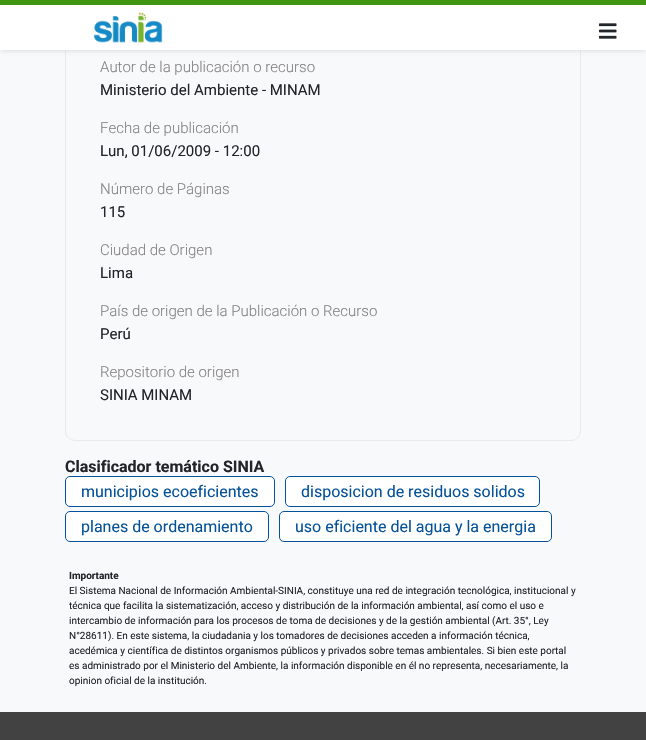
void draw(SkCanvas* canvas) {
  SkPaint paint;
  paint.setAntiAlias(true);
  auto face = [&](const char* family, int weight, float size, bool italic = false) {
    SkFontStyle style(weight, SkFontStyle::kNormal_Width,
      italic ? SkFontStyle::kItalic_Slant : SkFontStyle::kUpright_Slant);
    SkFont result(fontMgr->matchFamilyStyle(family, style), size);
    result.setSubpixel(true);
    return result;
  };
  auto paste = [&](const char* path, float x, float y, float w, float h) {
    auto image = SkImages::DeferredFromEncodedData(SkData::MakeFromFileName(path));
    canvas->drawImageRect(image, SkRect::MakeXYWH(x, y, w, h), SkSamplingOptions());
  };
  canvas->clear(0xfff8f9fa);
  paint.setStroke(true);
  paint.setStrokeWidth(1);
  paint.setColor(0xffe9e9e9);
  canvas->drawRoundRect(SkRect::MakeXYWH(65.5f, -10.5f, 515, 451), 9.5f, 9.5f, paint);
  paint.setStroke(false);
  paint.setColor(0xcccccccc);
  paint.setMaskFilter(SkMaskFilter::MakeBlur(kNormal_SkBlurStyle, 3));
  canvas->drawRect(SkRect::MakeXYWH(0, 0, 646, 50), paint);
  paint.setMaskFilter(nullptr);
  paint.setColor(0xffffffff);
  canvas->drawRect(SkRect::MakeXYWH(0, 5, 646, 45), paint);
  paint.setColor(0xff419510);
  canvas->drawRect(SkRect::MakeXYWH(0, 0, 646, 5), paint);
  paste("img/1.png", 93, 12, 70, 31);
  paste("img/2.png", 599, 23, 18, 16);
  paint.setColor(0xffffffff);
  canvas->drawRoundRect(SkRect::MakeXYWH(65.5f, 476.5f, 209, 30), 4.5f, 4.5f, paint);
  paint.setStroke(true);
  paint.setColor(0xff045299);
  canvas->drawRoundRect(SkRect::MakeXYWH(65.5f, 476.5f, 209, 30), 4.5f, 4.5f, paint);
  paint.setStroke(false);
  paint.setColor(0xffffffff);
  canvas->drawRoundRect(SkRect::MakeXYWH(285.5f, 476.5f, 254, 30), 4.5f, 4.5f, paint);
  paint.setStroke(true);
  paint.setColor(0xff045299);
  canvas->drawRoundRect(SkRect::MakeXYWH(285.5f, 476.5f, 254, 30), 4.5f, 4.5f, paint);
  paint.setStroke(false);
  paint.setColor(0xffffffff);
  canvas->drawRoundRect(SkRect::MakeXYWH(65.5f, 511.5f, 203, 30), 4.5f, 4.5f, paint);
  paint.setStroke(true);
  paint.setColor(0xff045299);
  canvas->drawRoundRect(SkRect::MakeXYWH(65.5f, 511.5f, 203, 30), 4.5f, 4.5f, paint);
  paint.setStroke(false);
  paint.setColor(0xffffffff);
  canvas->drawRoundRect(SkRect::MakeXYWH(279.5f, 511.5f, 272, 30), 4.5f, 4.5f, paint);
  paint.setStroke(true);
  paint.setColor(0xff045299);
  canvas->drawRoundRect(SkRect::MakeXYWH(279.5f, 511.5f, 272, 30), 4.5f, 4.5f, paint);
  paint.setStroke(false);
  paint.setColor(0xff424242);
  canvas->drawRect(SkRect::MakeXYWH(0, 712, 646, 28), paint);
  auto f0 = face("Roboto", 300, 15);
  paint.setColor(0xff858282);
  canvas->drawString("Autor de la publicación o recurso", 100, 72, f0, paint);
  auto f1 = face("Roboto", 400, 15);
  paint.setColor(0xff212529);
  canvas->drawString("Ministerio del Ambiente - MINAM", 100, 95, f1, paint);
  paint.setColor(0xff858282);
  canvas->drawString("Fecha de publicación", 100, 133, f0, paint);
  paint.setColor(0xff212529);
  canvas->drawString("Lun, 01/06/2009 - 12:00", 100, 156, f1, paint);
  paint.setColor(0xff858282);
  canvas->drawString("Número de Páginas", 100, 194, f0, paint);
  paint.setColor(0xff212529);
  canvas->drawString("115", 100, 217, f1, paint);
  paint.setColor(0xff858282);
  canvas->drawString("Ciudad de Origen", 100, 255, f0, paint);
  paint.setColor(0xff212529);
  canvas->drawString("Lima", 100, 278, f1, paint);
  paint.setColor(0xff858282);
  canvas->drawString("País de origen de la Publicación o Recurso", 100, 316, f0, paint);
  paint.setColor(0xff212529);
  canvas->drawString("Perú", 100, 339, f1, paint);
  paint.setColor(0xff858282);
  canvas->drawString("Repositorio de origen", 100, 377, f0, paint);
  paint.setColor(0xff212529);
  canvas->drawString("SINIA MINAM", 100, 400, f1, paint);
  auto f2 = face("Roboto", 700, 16);
  canvas->drawString("Clasificador temático SINIA", 65, 472, f2, paint);
  auto f3 = face("Roboto", 400, 16);
  paint.setColor(0xff045299);
  {
    const struct { const char* s; float x, y; } items[] = {
      {"municipios ecoeficientes", 81, 497},
      {"disposicion de residuos solidos", 301, 497},
      {"planes de ordenamiento", 81, 532},
      {"uso eficiente del agua y la energia", 295, 532},
    };
    for (auto [s, x, y] : items) {
      canvas->drawString(s, x, y, f3, paint);
    }
  }
  auto f4 = face("Roboto", 700, 10);
  paint.setColor(0xff212529);
  canvas->drawString("Importante", 69, 579, f4, paint);
  auto f5 = face("Roboto", 400, 10);
  {
    const struct { const char* s; float x, y; } items[] = {
      {"El Sistema Nacional de Información Ambiental-SINIA, constituye una red de integración tecnológica, institucional y", 69, 594},
      {"técnica que facilita la sistematización, acceso y distribución de la información ambiental, así como el uso e", 69, 609},
      {"intercambio de información para los procesos de toma de decisiones y de la gestión ambiental (Art. 35°, Ley", 69, 624},
      {"N°28611). En este sistema, la ciudadania y los tomadores de decisiones acceden a información técnica,", 69, 639},
      {"acedémica y científica de distintos organismos públicos y privados sobre temas ambientales. Si bien este portal", 69, 654},
      {"es administrado por el Ministerio del Ambiente, la información disponible en él no representa, necesariamente, la", 69, 669},
      {"opinion oficial de la institución.", 69, 684},
    };
    for (auto [s, x, y] : items) {
      canvas->drawString(s, x, y, f5, paint);
    }
  }
}
